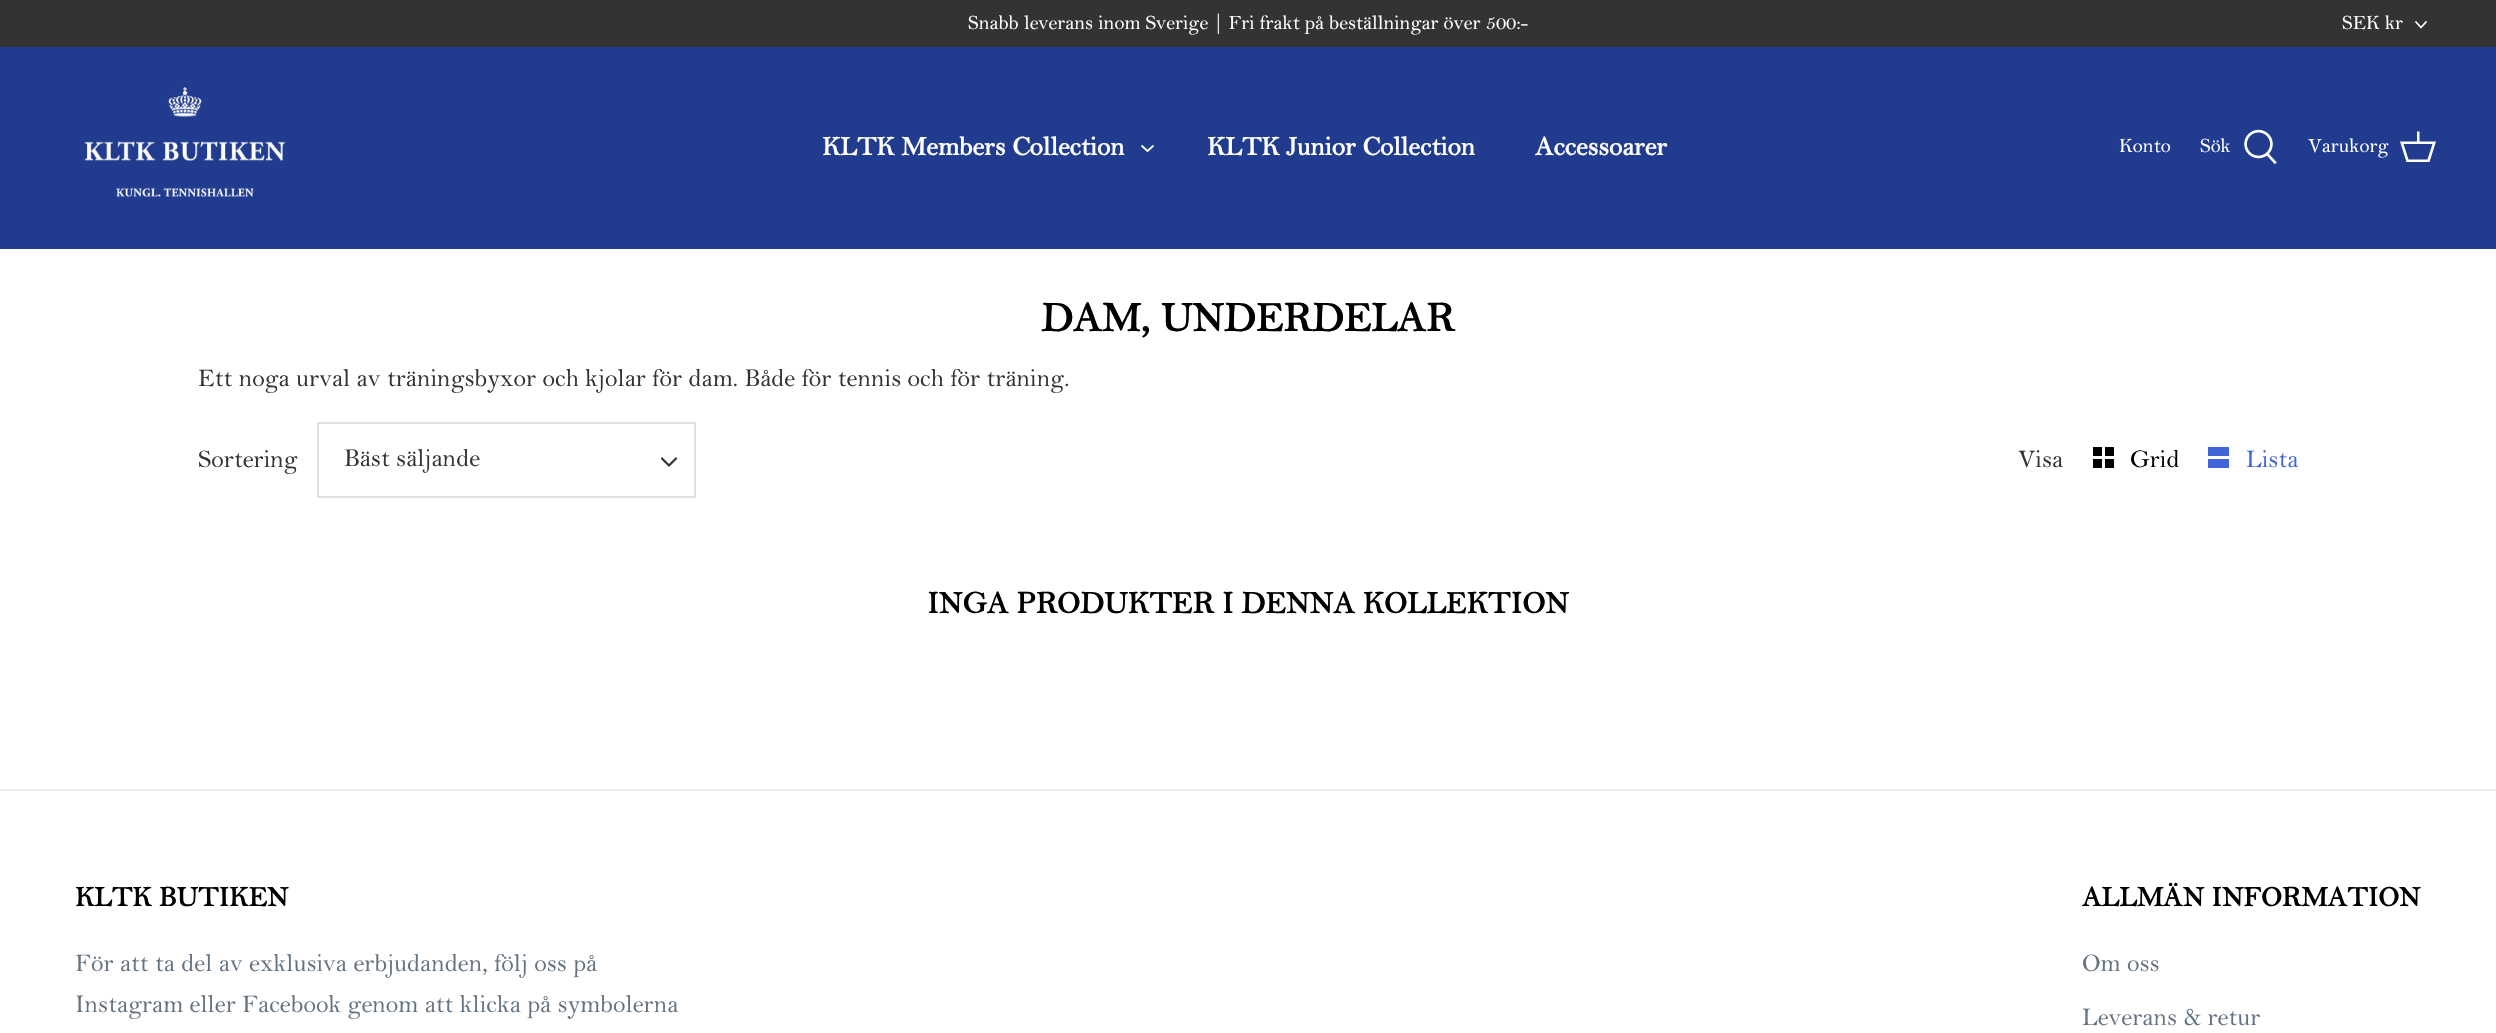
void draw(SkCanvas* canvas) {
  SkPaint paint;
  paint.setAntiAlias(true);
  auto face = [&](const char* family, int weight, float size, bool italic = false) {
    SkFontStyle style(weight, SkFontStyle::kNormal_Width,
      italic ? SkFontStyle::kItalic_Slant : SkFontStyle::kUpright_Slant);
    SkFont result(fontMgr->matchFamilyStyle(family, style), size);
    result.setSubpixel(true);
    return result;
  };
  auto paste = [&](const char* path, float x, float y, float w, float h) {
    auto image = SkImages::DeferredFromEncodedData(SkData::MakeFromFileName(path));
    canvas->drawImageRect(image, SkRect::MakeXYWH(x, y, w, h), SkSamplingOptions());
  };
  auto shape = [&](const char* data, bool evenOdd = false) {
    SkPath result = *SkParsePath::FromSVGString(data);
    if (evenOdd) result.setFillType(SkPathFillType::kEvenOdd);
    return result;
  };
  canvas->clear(0xffffffff);
  paint.setColor(0xff333333);
  canvas->drawRect(SkRect::MakeXYWH(0, 0, 2496, 47), paint);
  paint.setStroke(true);
  paint.setStrokeWidth(1.8f);
  paint.setStrokeCap(SkPaint::kRound_Cap);
  paint.setStrokeJoin(SkPaint::kRound_Join);
  paint.setColor(0xffffffff);
  canvas->drawPath(shape("M2416 22L2421 27.5L2426 22"), paint);
  paint.setStroke(false);
  paint.setColor(0xff213b8f);
  canvas->drawRect(SkRect::MakeXYWH(0, 47, 2496, 202), paint);
  paste("img/1.png", 84, 87, 201, 110);
  paint.setStroke(true);
  paint.setColor(0xffffffff);
  canvas->drawPath(shape("M1142 146L1147.5 151L1153 146"), paint);
  paste("img/2.png", 2244, 129, 33, 36);
  paint.setStroke(false);
  canvas->drawPath(shape("M2417 141.5V131.5H2419.5V141.5H2436L2429.5 162H2406.5L2400 141.5ZM2403.5 144L2408.5 159.5H2427.5L2432.5 144Z"), paint);
  paint.setStroke(true);
  paint.setStrokeWidth(2);
  paint.setStrokeCap(SkPaint::kButt_Cap);
  paint.setStrokeJoin(SkPaint::kMiter_Join);
  paint.setColor(0xffe0e0e0);
  canvas->drawRect(SkRect::MakeXYWH(318, 423, 377, 74), paint);
  paint.setStrokeWidth(2.2f);
  paint.setStrokeCap(SkPaint::kRound_Cap);
  paint.setStrokeJoin(SkPaint::kRound_Join);
  paint.setColor(0xff333333);
  canvas->drawPath(shape("M662 458.5L669 465.5L676 458.5"), paint);
  paint.setStroke(false);
  {
    const struct { float x, y, w, h; SkColor color; } items[] = {
      {2093, 447, 9, 9, 0xff000000},
      {2105, 447, 9, 9, 0xff000000},
      {2093, 459, 9, 9, 0xff000000},
      {2105, 459, 9, 9, 0xff000000},
      {2208, 447, 21, 9, 0xff4164d7},
      {2208, 459, 21, 9, 0xff4164d7},
      {0, 789, 2496, 2, 0xffeeeeee},
    };
    for (auto [x, y, w, h, color] : items) {
      paint.setColor(color);
      canvas->drawRect(SkRect::MakeXYWH(x, y, w, h), paint);
    }
  }
  auto f0 = face("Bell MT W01", 400, 20.4f);
  paint.setColor(0xffffffff);
  canvas->drawString("Snabb leverans inom Sverige | Fri frakt på beställningar över 500:-", 968, 29, f0, paint);
  canvas->drawString("SEK kr", 2342, 29, f0, paint);
  auto f1 = face("Bell MT W01", 700, 27);
  {
    const struct { const char* s; float x, y; } items[] = {
      {"KLTK Members Collection", 822, 155},
      {"KLTK Junior Collection", 1207, 155},
      {"Accessoarer", 1535, 155},
    };
    for (auto [s, x, y] : items) {
      canvas->drawString(s, x, y, f1, paint);
    }
  }
  {
    const struct { const char* s; float x, y; } items[] = {
      {"Konto", 2119, 152},
      {"Sök", 2200, 152},
      {"Varukorg", 2308, 152},
    };
    for (auto [s, x, y] : items) {
      canvas->drawString(s, x, y, f0, paint);
    }
  }
  auto f2 = face("Bell MT W01", 700, 42);
  paint.setColor(0xff000000);
  canvas->drawString("DAM, UNDERDELAR", 1041, 331, f2, paint);
  auto f3 = face("Bell MT W01", 400, 25.5f);
  paint.setColor(0xff333333);
  {
    const struct { const char* s; float x, y; } items[] = {
      {"Ett noga urval av träningsbyxor och kjolar för dam. Både för tennis och för träning.", 198, 386},
      {"Sortering", 198, 467},
      {"Bäst säljande", 344, 466},
      {"Visa", 2018, 467},
    };
    for (auto [s, x, y] : items) {
      canvas->drawString(s, x, y, f3, paint);
    }
  }
  paint.setColor(0xff000000);
  canvas->drawString("Grid", 2130, 467, f3, paint);
  paint.setColor(0xff4164d7);
  canvas->drawString("Lista", 2246, 467, f3, paint);
  auto f4 = face("Bell MT W01", 700, 31.5f);
  paint.setColor(0xff000000);
  canvas->drawString("INGA PRODUKTER I DENNA KOLLEKTION", 927, 613, f4, paint);
  auto f5 = face("Bell MT W01", 700, 28.5f);
  canvas->drawString("KLTK BUTIKEN", 75, 906, f5, paint);
  paint.setColor(0xff637381);
  canvas->drawString("För att ta del av exklusiva erbjudanden, följ oss på", 75, 971, f3, paint);
  canvas->drawString("Instagram eller Facebook genom att klicka på symbolerna", 75, 1012, f3, paint);
  paint.setColor(0xff000000);
  canvas->drawString("ALLMÄN INFORMATION", 2082, 906, f5, paint);
  paint.setColor(0xff637381);
  canvas->drawString("Om oss", 2082, 971, f3, paint);
  canvas->drawString("Leverans & retur", 2082, 1025, f3, paint);
}
